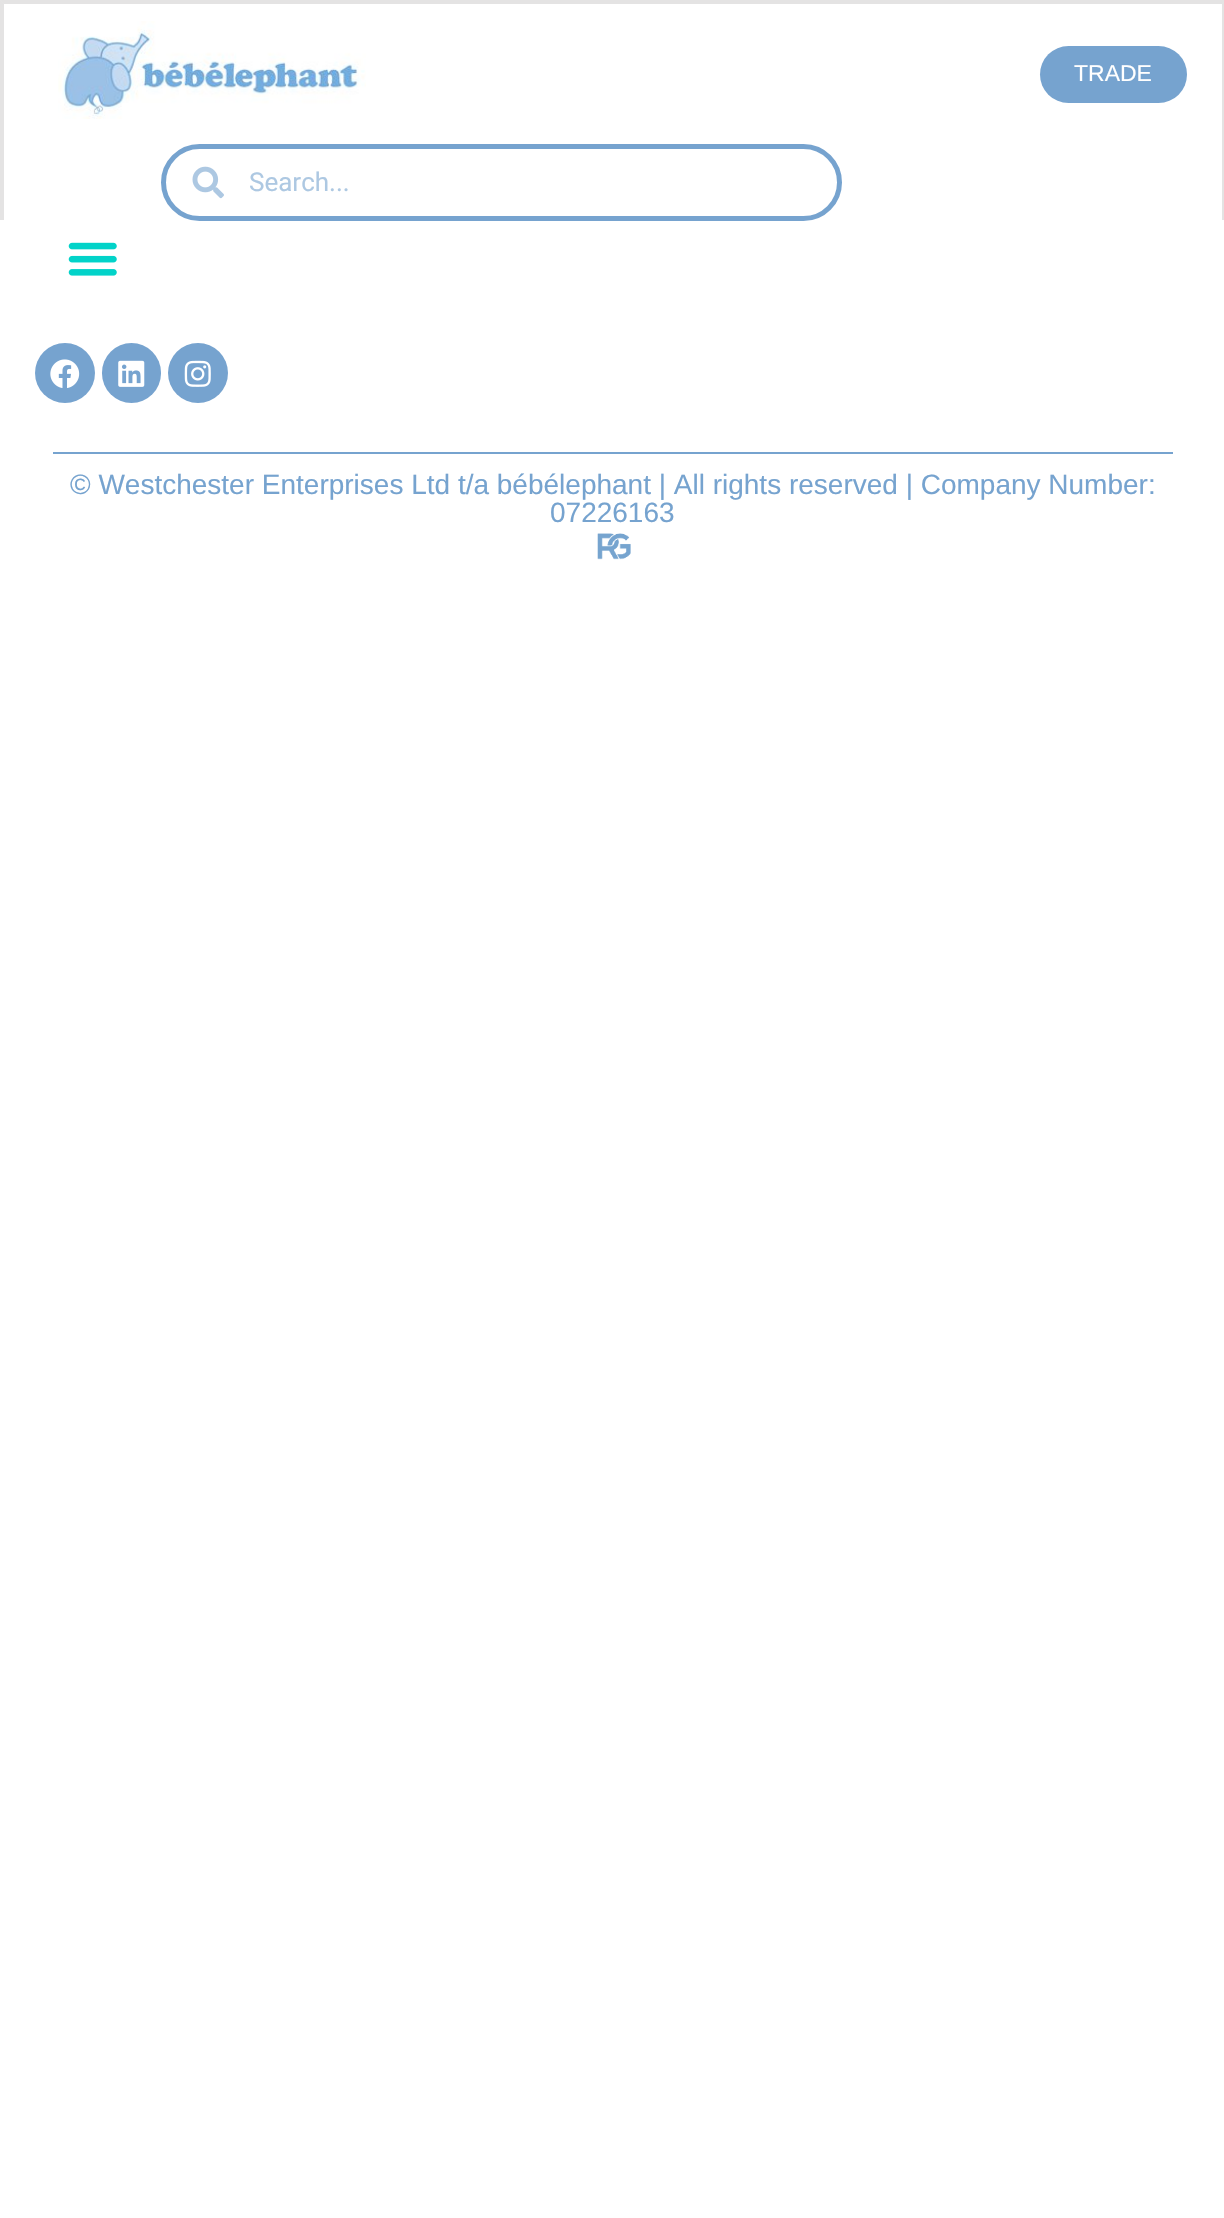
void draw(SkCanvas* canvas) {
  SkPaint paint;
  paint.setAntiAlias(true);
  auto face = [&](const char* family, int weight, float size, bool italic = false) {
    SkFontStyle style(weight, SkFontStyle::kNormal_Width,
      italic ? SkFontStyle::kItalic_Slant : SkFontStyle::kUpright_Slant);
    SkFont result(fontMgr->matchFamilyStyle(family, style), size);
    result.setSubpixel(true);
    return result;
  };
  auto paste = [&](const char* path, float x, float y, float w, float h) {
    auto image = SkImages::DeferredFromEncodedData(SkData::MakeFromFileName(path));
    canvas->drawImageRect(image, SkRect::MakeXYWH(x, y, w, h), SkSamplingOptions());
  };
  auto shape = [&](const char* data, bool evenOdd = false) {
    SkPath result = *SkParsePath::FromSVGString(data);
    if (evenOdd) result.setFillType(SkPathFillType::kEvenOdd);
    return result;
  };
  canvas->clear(0xffffffff);
  paint.setColor(0xffe4e3e3);
  canvas->drawPath(shape("M0 0H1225L1222 4H4Z"), paint);
  paint.setColor(0x2e676666);
  canvas->drawPath(shape("M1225 0V220H1222V4Z"), paint);
  canvas->drawPath(shape("M0 220V0L4 4V220Z"), paint);
  paste("img/1.png", 58, 21, 308, 98);
  paint.setColor(0xff76a3cf);
  canvas->drawRoundRect(SkRect::MakeXYWH(1040, 46, 147, 57), 28.5f, 28.5f, paint);
  paint.setStroke(true);
  paint.setStrokeWidth(5);
  canvas->drawRoundRect(SkRect::MakeXYWH(163.5f, 146.5f, 676, 72), 36, 36, paint);
  paste("img/2.png", 192, 166, 32, 33);
  paste("img/3.png", 68, 242, 49, 34);
  paint.setStroke(false);
  canvas->drawCircle(65, 373, 30, paint);
  paste("img/4.png", 50, 359, 30, 29);
  canvas->drawRoundRect(SkRect::MakeXYWH(102, 343, 59, 60), 29.5f, 29.5f, paint);
  paste("img/5.png", 118, 360, 27, 27);
  canvas->drawCircle(198, 373, 30, paint);
  paste("img/6.png", 184, 360, 27, 27);
  canvas->drawRect(SkRect::MakeXYWH(53, 452, 1120, 2), paint);
  paste("img/7.png", 597, 533, 34, 27);
  auto f0 = face("Liberation Sans", 400, 23);
  paint.setColor(0xffffffff);
  canvas->drawString("TRADE", 1074, 81, f0, paint);
  auto f1 = face("Roboto", 400, 26);
  paint.setColor(0xffadc8e2);
  canvas->drawString("Search...", 249, 191, f1, paint);
  auto f2 = face("Liberation Sans", 400, 28);
  paint.setColor(0xff76a3cf);
  canvas->drawString("© Westchester Enterprises Ltd t/a bébélephant | All rights reserved | Company Number:", 70, 494, f2, paint);
  canvas->drawString("07226163", 550, 522, f2, paint);
}
